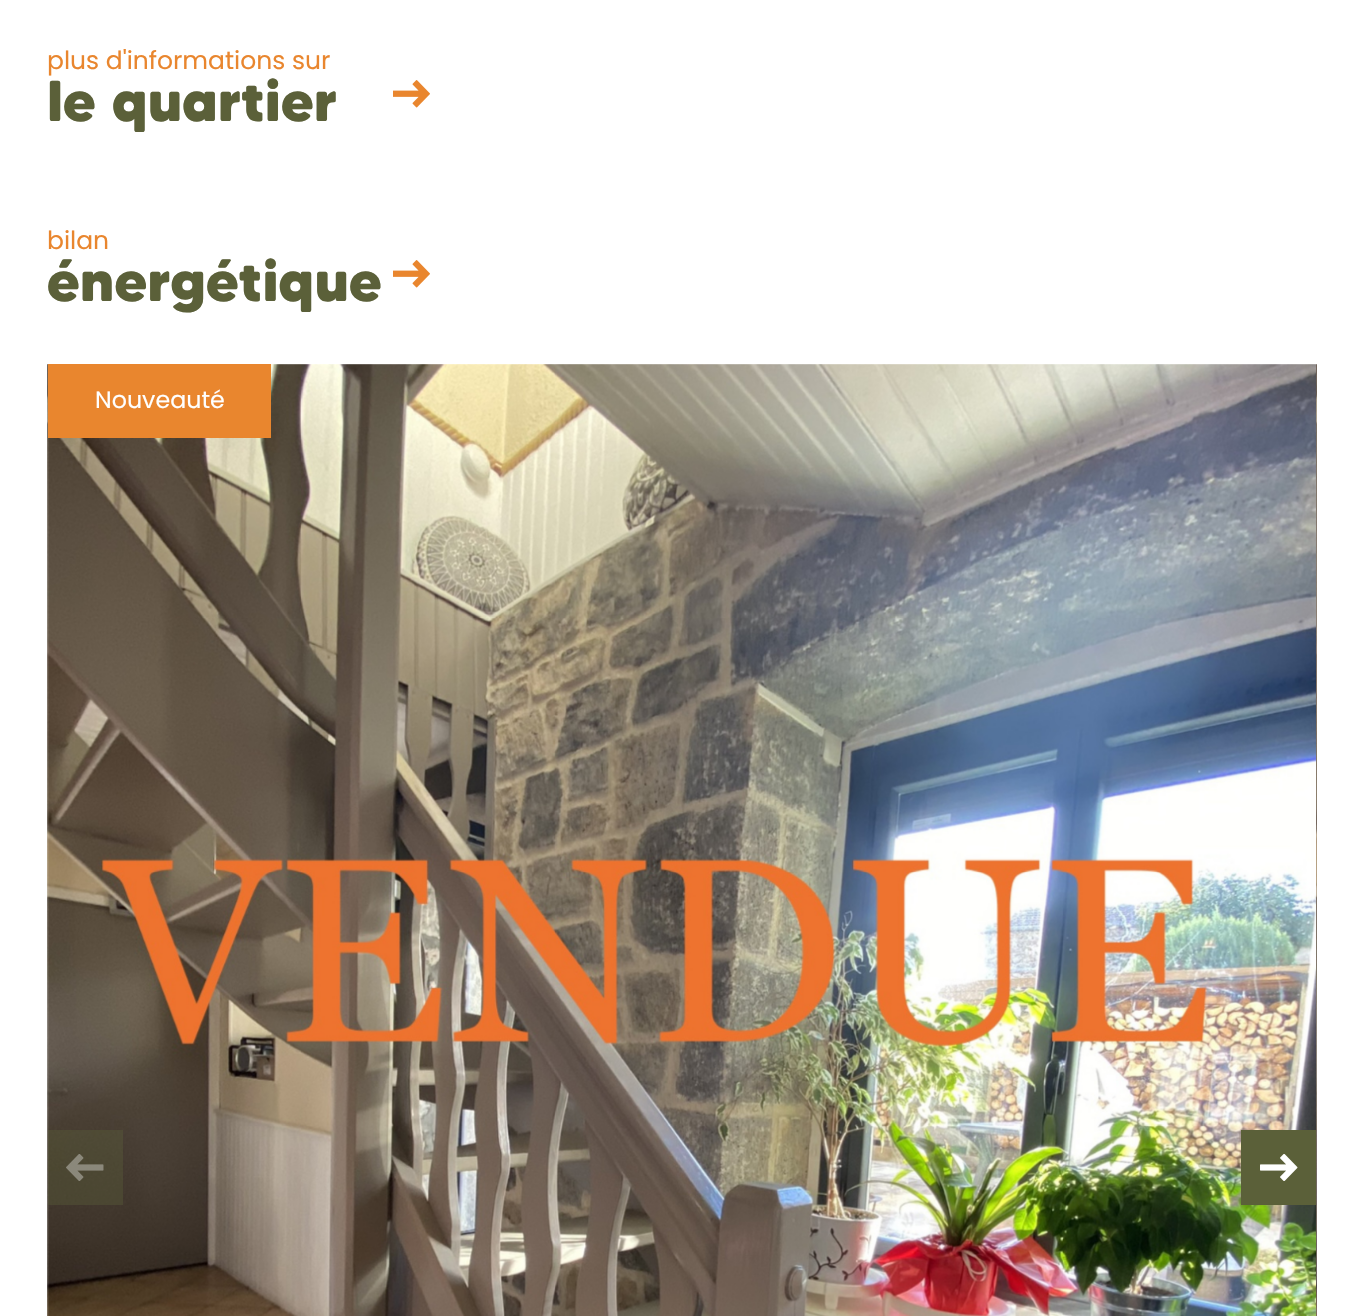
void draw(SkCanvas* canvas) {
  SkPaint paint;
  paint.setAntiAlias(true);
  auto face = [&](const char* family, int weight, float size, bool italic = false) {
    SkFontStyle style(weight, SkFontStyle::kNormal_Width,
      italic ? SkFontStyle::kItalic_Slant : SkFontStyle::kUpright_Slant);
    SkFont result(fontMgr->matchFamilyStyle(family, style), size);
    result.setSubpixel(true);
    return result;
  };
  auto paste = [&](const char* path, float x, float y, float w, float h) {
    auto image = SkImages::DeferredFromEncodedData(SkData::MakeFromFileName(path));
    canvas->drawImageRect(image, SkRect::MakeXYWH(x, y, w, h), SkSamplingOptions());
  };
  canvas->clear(0xffffffff);
  paste("img/1.png", 393, 80, 37, 28);
  paste("img/1.png", 393, 260, 37, 28);
  paste("img/2.png", 47, 364, 1269, 952);
  paste("img/3.png", 1316, 364, 1, 952);
  paint.setColor(0x595b6039);
  canvas->drawRect(SkRect::MakeXYWH(48, 1130, 75, 75), paint);
  paste("img/4.png", 66, 1154, 38, 27);
  paint.setColor(0xff5b6039);
  canvas->drawRect(SkRect::MakeXYWH(1241, 1130, 75, 75), paint);
  paste("img/5.png", 1260, 1154, 38, 27);
  paint.setColor(0xffe9862e);
  canvas->drawRect(SkRect::MakeXYWH(48, 364, 223, 74), paint);
  auto f0 = face("Poppins", 400, 25);
  canvas->drawString("plus d'informations sur", 47, 69, f0, paint);
  auto f1 = face("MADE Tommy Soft", 800, 57.5f);
  paint.setColor(0xff5b6039);
  canvas->drawString("le quartier", 47, 121, f1, paint);
  paint.setColor(0xffe9862e);
  canvas->drawString("bilan", 47, 249, f0, paint);
  paint.setColor(0xff5b6039);
  canvas->drawString("énergétique", 47, 301, f1, paint);
  auto f2 = face("Poppins", 400, 23.75f);
  paint.setColor(0xffffffff);
  canvas->drawString("Nouveauté", 95, 408, f2, paint);
}
